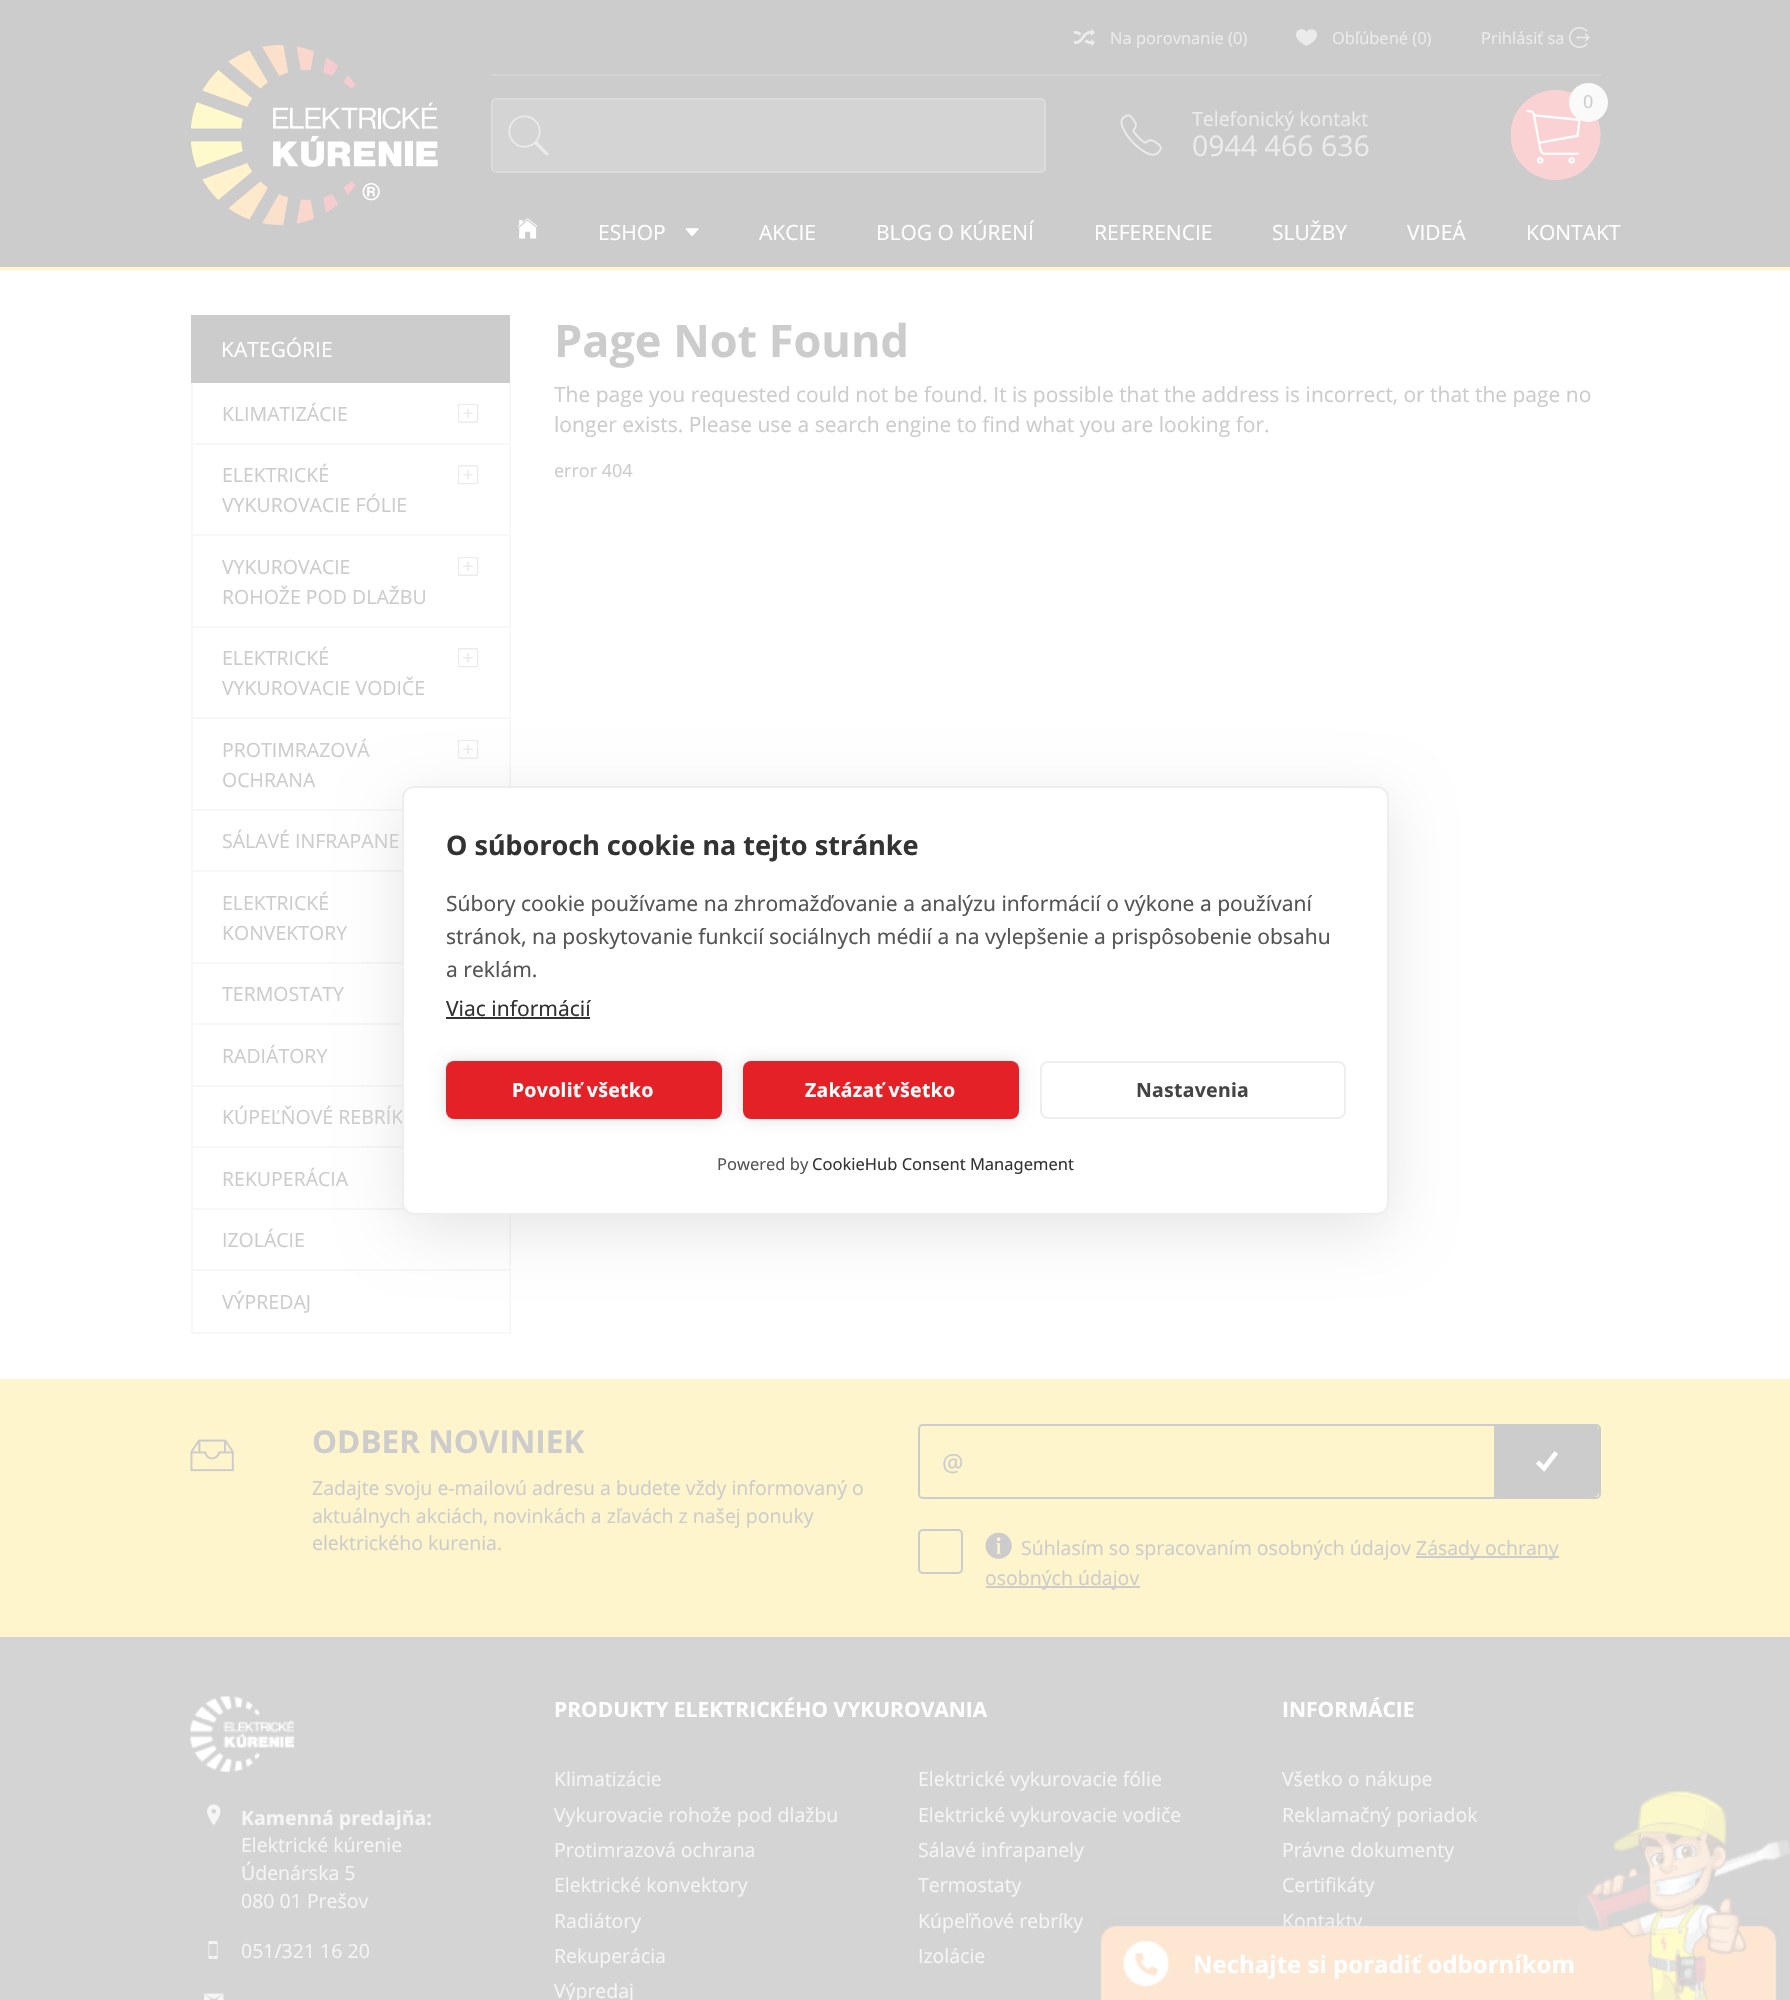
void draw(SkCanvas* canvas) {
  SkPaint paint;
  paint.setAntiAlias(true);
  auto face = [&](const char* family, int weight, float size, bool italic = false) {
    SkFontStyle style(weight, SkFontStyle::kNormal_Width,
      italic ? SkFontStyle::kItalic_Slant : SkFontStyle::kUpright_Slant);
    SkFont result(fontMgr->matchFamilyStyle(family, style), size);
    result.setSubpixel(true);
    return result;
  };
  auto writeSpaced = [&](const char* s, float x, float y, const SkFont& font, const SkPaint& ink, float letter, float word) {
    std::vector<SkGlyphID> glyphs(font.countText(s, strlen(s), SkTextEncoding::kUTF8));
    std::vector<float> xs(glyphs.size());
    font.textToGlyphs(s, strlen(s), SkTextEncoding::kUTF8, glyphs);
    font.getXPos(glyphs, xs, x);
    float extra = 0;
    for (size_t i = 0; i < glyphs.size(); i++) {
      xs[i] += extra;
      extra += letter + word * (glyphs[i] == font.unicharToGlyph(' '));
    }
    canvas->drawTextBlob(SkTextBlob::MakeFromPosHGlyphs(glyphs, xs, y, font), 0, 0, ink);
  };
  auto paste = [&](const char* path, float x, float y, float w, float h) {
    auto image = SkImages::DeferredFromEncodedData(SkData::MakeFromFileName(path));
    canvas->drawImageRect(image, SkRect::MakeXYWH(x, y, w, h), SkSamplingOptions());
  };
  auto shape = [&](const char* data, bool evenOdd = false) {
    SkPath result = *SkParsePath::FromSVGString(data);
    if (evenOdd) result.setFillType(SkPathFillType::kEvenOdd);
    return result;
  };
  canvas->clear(0xffffffff);
  {
    const struct { float x, y, w, h; SkColor color; } items[] = {
      {0, 0, 1790, 267, 0xffcccccc},
      {0, 267, 1790, 3, 0xfffff5cd},
      {491, 74, 1110, 2, 0xffd4d4d4},
    };
    for (auto [x, y, w, h, color] : items) {
      paint.setColor(color);
      canvas->drawRect(SkRect::MakeXYWH(x, y, w, h), paint);
    }
  }
  paste("img/1.png", 1074, 28, 21, 19);
  paste("img/2.png", 1296, 29, 21, 17);
  paste("img/3.png", 1569, 27, 21, 21);
  paste("img/4.png", 191, 45, 247, 180);
  paste("img/5.png", 1511, 90, 90, 90);
  paint.setColor(0xfffafafa);
  canvas->drawCircle(1588.5f, 102.5f, 19.5f, paint);
  paint.setColor(0xffd4d4d4);
  canvas->drawRoundRect(SkRect::MakeXYWH(492, 99, 553, 73), 4, 4, paint);
  paint.setStroke(true);
  paint.setStrokeWidth(2);
  paint.setColor(0xffdbdbdb);
  canvas->drawRoundRect(SkRect::MakeXYWH(492, 99, 553, 73), 4, 4, paint);
  paste("img/6.png", 508, 115, 41, 41);
  paste("img/7.png", 1120, 114, 42, 42);
  paste("img/8.png", 517, 218, 21, 21);
  paste("img/9.png", 685, 228, 14, 8);
  paint.setStroke(false);
  {
    const struct { float x, y, w, h; SkColor color; } items[] = {
      {191, 315, 319, 68, 0xffcccccc},
      {509, 383, 2, 951, 0xfff7f7f7},
      {191, 1332, 319, 2, 0xfff7f7f7},
      {191, 383, 2, 951, 0xfff7f7f7},
      {192, 443, 317, 2, 0xfff7f7f7},
    };
    for (auto [x, y, w, h, color] : items) {
      paint.setColor(color);
      canvas->drawRect(SkRect::MakeXYWH(x, y, w, h), paint);
    }
  }
  paste("img/10.png", 458, 404, 21, 19);
  canvas->drawRect(SkRect::MakeXYWH(192, 534, 317, 2), paint);
  paste("img/11.png", 458, 465, 21, 20);
  canvas->drawRect(SkRect::MakeXYWH(192, 626, 317, 2), paint);
  paste("img/10.png", 458, 557, 21, 19);
  canvas->drawRect(SkRect::MakeXYWH(192, 717, 317, 2), paint);
  paste("img/11.png", 458, 648, 21, 20);
  canvas->drawRect(SkRect::MakeXYWH(192, 809, 210, 2), paint);
  paste("img/10.png", 458, 740, 21, 19);
  {
    const struct { float x, y, w, h; SkColor color; } items[] = {
      {192, 870, 210, 2, 0xfff7f7f7},
      {192, 962, 210, 2, 0xfff7f7f7},
      {192, 1023, 210, 2, 0xfff7f7f7},
      {192, 1085, 210, 2, 0xfff7f7f7},
      {192, 1146, 210, 2, 0xfff7f7f7},
      {192, 1208, 213, 2, 0xfff7f7f7},
      {192, 1269, 317, 2, 0xfff7f7f7},
      {192, 1331, 1, 1, 0xffffffff},
    };
    for (auto [x, y, w, h, color] : items) {
      paint.setColor(color);
      canvas->drawRect(SkRect::MakeXYWH(x, y, w, h), paint);
    }
  }
  paint.setColor(0x1a000000);
  paint.setMaskFilter(SkMaskFilter::MakeBlur(kNormal_SkBlurStyle, 30));
  canvas->drawRoundRect(SkRect::MakeXYWH(402, 801, 987, 429), 12, 12, paint);
  paint.setMaskFilter(nullptr);
  paint.setColor(0xfffff5cd);
  canvas->drawRect(SkRect::MakeXYWH(0, 1379, 1790, 258), paint);
  paste("img/12.png", 190, 1439, 44, 33);
  paint.setStroke(true);
  paint.setColor(0xffcccccc);
  canvas->drawRoundRect(SkRect::MakeXYWH(919, 1425, 681, 73), 4, 4, paint);
  paint.setStroke(false);
  canvas->drawPath(shape("M1495 1426H1594C1596 1426 1598 1428 1598 1430V1492C1598 1494 1596 1496 1594 1496H1495Z"), paint);
  paint.setStroke(true);
  canvas->drawPath(shape("M1495 1426H1594C1596 1426 1598 1428 1598 1430V1492C1598 1494 1596 1496 1594 1496H1495Z"), paint);
  paste("img/13.png", 1536, 1451, 22, 21);
  canvas->drawRoundRect(SkRect::MakeXYWH(919, 1530, 43, 43), 4, 4, paint);
  paste("img/14.png", 985, 1532, 27, 27);
  paint.setStroke(false);
  {
    const struct { float x, y, w, h; SkColor color; } items[] = {
      {1416, 1556, 143, 2, 0xffcccccc},
      {986, 1586, 154, 2, 0xffcccccc},
      {0, 1637, 1790, 363, 0xffd4d4d4},
    };
    for (auto [x, y, w, h, color] : items) {
      paint.setColor(color);
      canvas->drawRect(SkRect::MakeXYWH(x, y, w, h), paint);
    }
  }
  paste("img/15.png", 190, 1696, 104, 77);
  paste("img/16.png", 207, 1804, 14, 22);
  paste("img/17.png", 208, 1941, 10, 18);
  paste("img/18.png", 204, 1993, 20, 7);
  auto f0 = face("Open Sans", 400, 16.5f);
  paint.setColor(0xffebebeb);
  {
    const struct { const char* s; float x, y; } items[] = {
      {"Na porovnanie (0)", 1110, 44},
      {"Obľúbené (0)", 1332, 44},
      {"Prihlásiť sa", 1481, 44},
    };
    for (auto [s, x, y] : items) {
      canvas->drawString(s, x, y, f0, paint);
    }
  }
  auto f1 = face("Open Sans", 400, 18);
  paint.setColor(0xffcccccc);
  canvas->drawString("0", 1583, 108, f1, paint);
  auto f2 = face("Open Sans", 400, 19.5f);
  paint.setColor(0xffebebeb);
  canvas->drawString("Telefonický kontakt", 1192, 126, f2, paint);
  auto f3 = face("Open Sans", 400, 28.5f);
  canvas->drawString("0944 466 636", 1192, 156, f3, paint);
  auto f4 = face("Open Sans", 400, 21);
  paint.setColor(0xffffffff);
  {
    const struct { const char* s; float x, y; } items[] = {
      {"ESHOP", 598, 240},
      {"AKCIE", 759, 240},
      {"BLOG O KÚRENÍ", 876, 240},
      {"REFERENCIE", 1094, 240},
      {"SLUŽBY", 1272, 240},
      {"VIDEÁ", 1407, 240},
      {"KONTAKT", 1526, 240},
      {"KATEGÓRIE", 221, 357},
    };
    for (auto [s, x, y] : items) {
      canvas->drawString(s, x, y, f4, paint);
    }
  }
  paint.setColor(0xffcccccc);
  {
    const struct { const char* s; float x, y; } items[] = {
      {"KLIMATIZÁCIE", 222, 421},
      {"ELEKTRICKÉ", 222, 482},
      {"VYKUROVACIE FÓLIE", 222, 512},
      {"VYKUROVACIE", 222, 574},
      {"ROHOŽE POD DLAŽBU", 222, 604},
      {"ELEKTRICKÉ", 222, 665},
      {"VYKUROVACIE VODIČE", 222, 695},
      {"PROTIMRAZOVÁ", 222, 757},
      {"OCHRANA", 222, 787},
      {"SÁLAVÉ INFRAPANE", 222, 848},
      {"ELEKTRICKÉ", 222, 910},
      {"KONVEKTORY", 222, 940},
      {"TERMOSTATY", 222, 1001},
      {"RADIÁTORY", 222, 1063},
      {"KÚPEĽŇOVÉ REBRÍK", 222, 1124},
      {"REKUPERÁCIA", 222, 1186},
      {"IZOLÁCIE", 222, 1247},
      {"VÝPREDAJ", 222, 1309},
    };
    for (auto [s, x, y] : items) {
      canvas->drawString(s, x, y, f2, paint);
    }
  }
  auto f5 = face("Open Sans", 700, 45);
  canvas->drawString("Page Not Found", 554, 357, f5, paint);
  canvas->drawString("The page you requested could not be found. It is possible that the address is incorrect, or that the page no", 554, 402, f4, paint);
  canvas->drawString("longer exists. Please use a search engine to find what you are looking for.", 554, 432, f4, paint);
  canvas->drawString("error 404", 554, 477, f1, paint);
  paint.setColor(0xffffffff);
  canvas->drawRoundRect(SkRect::MakeXYWH(403, 787, 985, 427), 11, 11, paint);
  paint.setStroke(true);
  paint.setColor(0xffeeeeee);
  canvas->drawRoundRect(SkRect::MakeXYWH(403, 787, 985, 427), 11, 11, paint);
  auto f6 = face("Noto Sans", 700, 27);
  paint.setStroke(false);
  paint.setColor(0xff333333);
  canvas->drawString("O súboroch cookie na tejto stránke", 446, 855, f6, paint);
  auto f7 = face("Noto Sans", 400, 21);
  paint.setColor(0xff555555);
  {
    const struct { const char* s; float x, y; } items[] = {
      {"Súbory cookie používame na zhromažďovanie a analýzu informácií o výkone a používaní", 446, 911},
      {"stránok, na poskytovanie funkcií sociálnych médií a na vylepšenie a prispôsobenie obsahu", 446, 944},
      {"a reklám.", 446, 977},
    };
    for (auto [s, x, y] : items) {
      canvas->drawString(s, x, y, f7, paint);
    }
  }
  paint.setColor(0xff333333);
  canvas->drawString("Viac informácií", 446, 1016, f7, paint);
  canvas->drawRect(SkRect::MakeXYWH(446, 1017, 144, 2), paint);
  paint.setColor(0x1f000000);
  paint.setMaskFilter(SkMaskFilter::MakeBlur(kNormal_SkBlurStyle, 7.5f));
  canvas->drawRoundRect(SkRect::MakeXYWH(446, 1061, 276, 58), 8, 8, paint);
  paint.setMaskFilter(nullptr);
  paint.setColor(0xffe42127);
  canvas->drawRoundRect(SkRect::MakeXYWH(446, 1061, 276, 58), 8, 8, paint);
  auto f8 = face("Noto Sans", 700, 19.5f);
  paint.setColor(0xffffffff);
  writeSpaced("Povoliť všetko", 512, 1097, f8, paint, 0.25f, 0);
  paint.setColor(0x1f000000);
  paint.setMaskFilter(SkMaskFilter::MakeBlur(kNormal_SkBlurStyle, 7.5f));
  canvas->drawRoundRect(SkRect::MakeXYWH(743, 1061, 276, 58), 8, 8, paint);
  paint.setMaskFilter(nullptr);
  paint.setColor(0xffe42127);
  canvas->drawRoundRect(SkRect::MakeXYWH(743, 1061, 276, 58), 8, 8, paint);
  paint.setColor(0xffffffff);
  writeSpaced("Zakázať všetko", 805, 1097, f8, paint, 0.25f, 0);
  paint.setStroke(true);
  paint.setColor(0xffeeeeee);
  canvas->drawRoundRect(SkRect::MakeXYWH(1041, 1062, 304, 56), 7, 7, paint);
  paint.setStroke(false);
  paint.setColor(0xff444444);
  writeSpaced("Nastavenia", 1136, 1097, f8, paint, 0.25f, 0);
  auto f9 = face("Noto Sans", 400, 16.5f);
  paint.setColor(0xff555555);
  canvas->drawString("Powered by", 717, 1170, f9, paint);
  paint.setColor(0xff333333);
  canvas->drawString("CookieHub Consent Management", 812, 1170, f9, paint);
  auto f10 = face("Open Sans", 700, 31.5f);
  paint.setColor(0xffcccccc);
  canvas->drawString("ODBER NOVINIEK", 312, 1453, f10, paint);
  {
    const struct { const char* s; float x, y; } items[] = {
      {"Zadajte svoju e-mailovú adresu a budete vždy informovaný o", 312, 1495},
      {"aktuálnych akciách, novinkách a zľavách z našej ponuky", 312, 1523},
      {"elektrického kurenia.", 312, 1550},
    };
    for (auto [s, x, y] : items) {
      canvas->drawString(s, x, y, f2, paint);
    }
  }
  auto f11 = face("Open Sans", 400, 24);
  canvas->drawString("@", 942, 1471, f11, paint);
  {
    const struct { const char* s; float x, y; } items[] = {
      {"Súhlasím so spracovaním osobných údajov", 1021, 1555},
      {"Zásady ochrany", 1416, 1555},
      {"osobných údajov", 985, 1585},
    };
    for (auto [s, x, y] : items) {
      canvas->drawString(s, x, y, f2, paint);
    }
  }
  auto f12 = face("Open Sans", 700, 19.5f);
  paint.setColor(0xfff5f5f5);
  canvas->drawString("Kamenná predajňa:", 241, 1825, f12, paint);
  {
    const struct { const char* s; float x, y; } items[] = {
      {"Elektrické kúrenie", 241, 1852},
      {"Údenárska 5", 241, 1880},
      {"080 01 Prešov", 241, 1908},
      {"051/321 16 20", 241, 1958},
    };
    for (auto [s, x, y] : items) {
      canvas->drawString(s, x, y, f2, paint);
    }
  }
  auto f13 = face("Open Sans", 700, 21);
  paint.setColor(0xffffffff);
  canvas->drawString("PRODUKTY ELEKTRICKÉHO VYKUROVANIA", 554, 1717, f13, paint);
  paint.setColor(0xfff5f5f5);
  {
    const struct { const char* s; float x, y; } items[] = {
      {"Klimatizácie", 554, 1786},
      {"Elektrické vykurovacie fólie", 918, 1786},
      {"Vykurovacie rohože pod dlažbu", 554, 1822},
      {"Elektrické vykurovacie vodiče", 918, 1822},
      {"Protimrazová ochrana", 554, 1857},
      {"Sálavé infrapanely", 918, 1857},
      {"Elektrické konvektory", 554, 1892},
      {"Termostaty", 918, 1892},
      {"Radiátory", 554, 1928},
      {"Kúpeľňové rebríky", 918, 1928},
      {"Rekuperácia", 554, 1963},
      {"Izolácie", 918, 1963},
      {"Výpredaj", 554, 1998},
    };
    for (auto [s, x, y] : items) {
      canvas->drawString(s, x, y, f2, paint);
    }
  }
  paint.setColor(0xffffffff);
  canvas->drawString("INFORMÁCIE", 1282, 1717, f13, paint);
  paint.setColor(0xfff5f5f5);
  {
    const struct { const char* s; float x, y; } items[] = {
      {"Všetko o nákupe", 1282, 1786},
      {"Reklamačný poriadok", 1282, 1822},
      {"Právne dokumenty", 1282, 1857},
      {"Certifikáty", 1282, 1892},
      {"Kontakty", 1282, 1928},
    };
    for (auto [s, x, y] : items) {
      canvas->drawString(s, x, y, f2, paint);
    }
  }
  paste("img/19.png", 1100, 1791, 690, 209);
  auto f14 = face("Open Sans", 700, 24);
  paint.setColor(0xffffffff);
  canvas->drawString("Nechajte si poradiť odborníkom", 1193, 1973, f14, paint);
}
